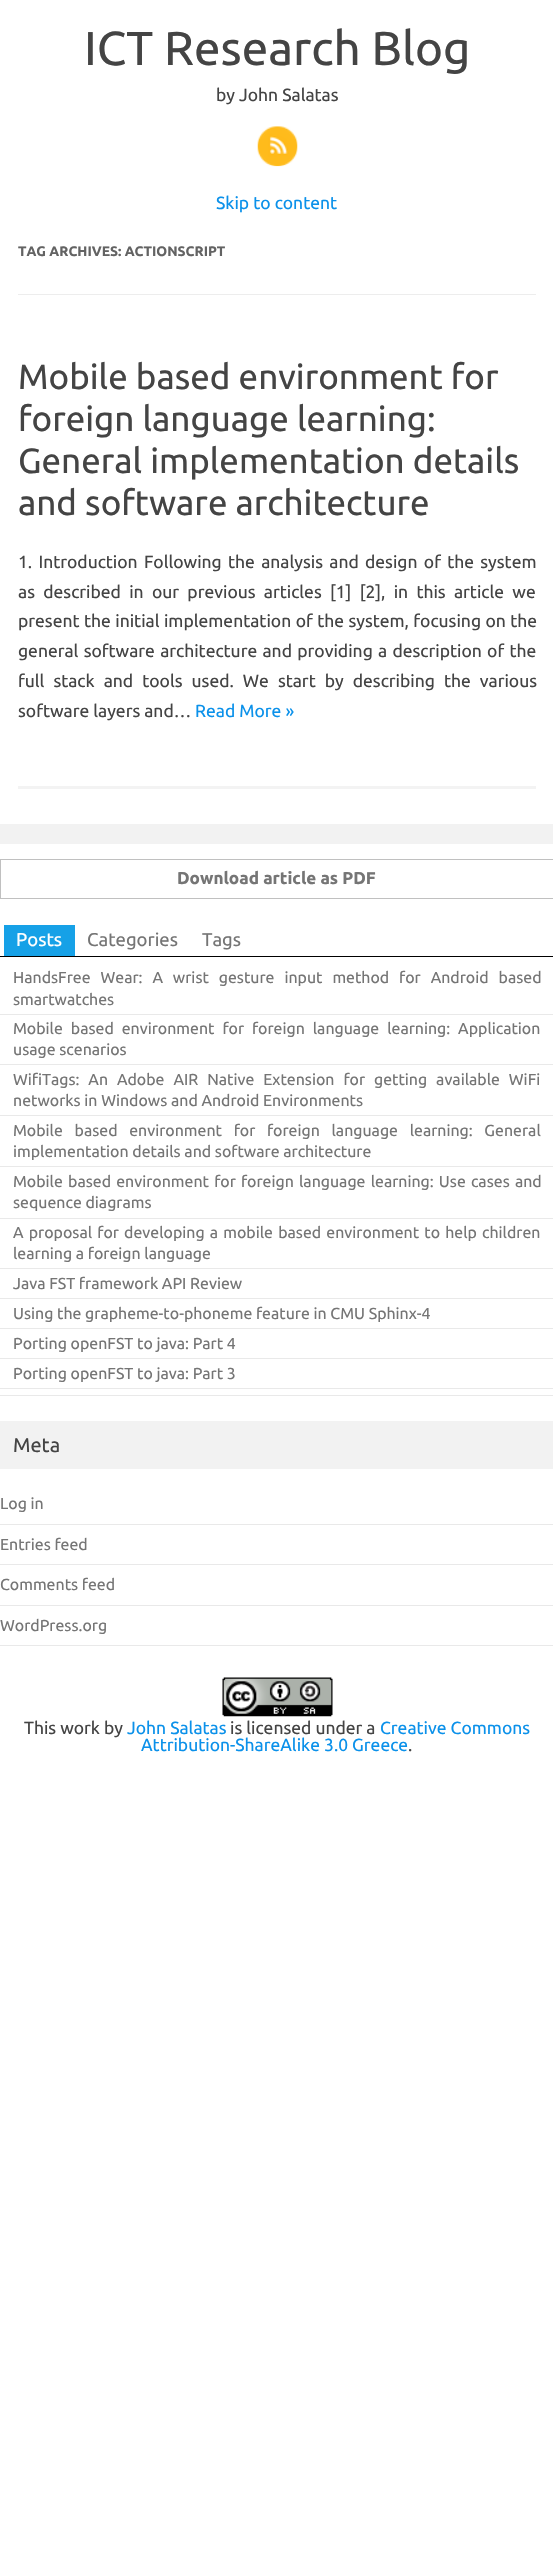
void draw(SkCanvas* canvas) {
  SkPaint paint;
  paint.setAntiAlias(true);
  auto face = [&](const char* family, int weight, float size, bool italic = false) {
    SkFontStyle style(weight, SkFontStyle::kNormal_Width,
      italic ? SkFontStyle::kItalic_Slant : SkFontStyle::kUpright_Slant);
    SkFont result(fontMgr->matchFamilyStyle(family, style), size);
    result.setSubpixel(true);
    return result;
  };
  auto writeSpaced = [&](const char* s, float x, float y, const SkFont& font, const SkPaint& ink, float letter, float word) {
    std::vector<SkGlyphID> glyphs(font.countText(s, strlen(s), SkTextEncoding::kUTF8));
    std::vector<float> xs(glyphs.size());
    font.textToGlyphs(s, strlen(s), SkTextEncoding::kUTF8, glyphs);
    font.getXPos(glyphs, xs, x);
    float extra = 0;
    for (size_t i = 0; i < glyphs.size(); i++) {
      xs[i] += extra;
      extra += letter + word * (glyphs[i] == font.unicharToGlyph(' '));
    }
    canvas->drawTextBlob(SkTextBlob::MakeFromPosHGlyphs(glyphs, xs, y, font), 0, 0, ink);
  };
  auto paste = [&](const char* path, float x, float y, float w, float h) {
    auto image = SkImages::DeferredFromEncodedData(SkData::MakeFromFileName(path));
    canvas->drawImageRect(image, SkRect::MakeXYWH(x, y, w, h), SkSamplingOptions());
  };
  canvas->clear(0xffffffff);
  paste("img/1.png", 257, 126, 41, 41);
  {
    const struct { float x, y, w, h; SkColor color; } items[] = {
      {18, 294, 518, 1, 0xffededed},
      {18, 786, 518, 3, 0xfff3f3f3},
      {0, 824, 553, 20, 0xfff2f2f2},
    };
    for (auto [x, y, w, h, color] : items) {
      paint.setColor(color);
      canvas->drawRect(SkRect::MakeXYWH(x, y, w, h), paint);
    }
  }
  paint.setStroke(true);
  paint.setStrokeWidth(1);
  paint.setColor(0xffc0c0c0);
  canvas->drawRect(SkRect::MakeXYWH(0.5f, 859.5f, 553, 39), paint);
  paint.setStroke(false);
  {
    const struct { float x, y, w, h; SkColor color; } items[] = {
      {0, 956, 553, 1, 0xff000000},
      {4, 925, 71, 31, 0xff16a1e7},
      {0, 1395, 553, 1, 0xffe9e9e9},
      {0, 1014, 553, 1, 0xffe9e9e9},
      {0, 1064, 553, 1, 0xffe9e9e9},
      {0, 1115, 553, 1, 0xffe9e9e9},
      {0, 1166, 553, 1, 0xffe9e9e9},
      {0, 1218, 553, 1, 0xffe9e9e9},
      {0, 1268, 553, 1, 0xffe9e9e9},
      {0, 1298, 553, 1, 0xffe9e9e9},
      {0, 1328, 553, 1, 0xffe9e9e9},
      {0, 1358, 553, 1, 0xffe9e9e9},
      {0, 1388, 553, 1, 0xffe9e9e9},
      {0, 1421, 553, 48, 0xfff2f2f2},
      {0, 1524, 553, 1, 0xffe9e9e9},
      {0, 1564, 553, 1, 0xffe9e9e9},
      {0, 1605, 553, 1, 0xffe9e9e9},
      {0, 1645, 553, 1, 0xffe9e9e9},
    };
    for (auto [x, y, w, h, color] : items) {
      paint.setColor(color);
      canvas->drawRect(SkRect::MakeXYWH(x, y, w, h), paint);
    }
  }
  paste("img/2.png", 222, 1677, 111, 40);
  auto f0 = face("Ubuntu", 400, 47.5f);
  paint.setColor(0xff444444);
  canvas->drawString("ICT Research Blog", 84, 65, f0, paint);
  auto f1 = face("Ubuntu", 400, 17.5f);
  canvas->drawString("by John Salatas", 216, 101, f1, paint);
  paint.setColor(0xff0b91ea);
  canvas->drawString("Skip to content", 216, 209, f1, paint);
  auto f2 = face("Ubuntu", 700, 13.75f);
  paint.setColor(0xff636363);
  canvas->drawString("TAG ARCHIVES: ACTIONSCRIPT", 18, 256, f2, paint);
  auto f3 = face("Ubuntu", 400, 35);
  paint.setColor(0xff444444);
  {
    const struct { const char* s; float x, y; } items[] = {
      {"Mobile based environment for", 18, 389},
      {"foreign language learning:", 18, 431},
      {"General implementation details", 18, 473},
      {"and software architecture", 18, 515},
    };
    for (auto [s, x, y] : items) {
      canvas->drawString(s, x, y, f3, paint);
    }
  }
  writeSpaced("1. Introduction Following the analysis and design of the system", 18, 568, f1, paint, 0, 2.25f);
  writeSpaced("as described in our previous articles [1] [2], in this article we", 18, 598, f1, paint, 0, 4.25f);
  writeSpaced("present the initial implementation of the system, focusing on the", 18, 627, f1, paint, 0, 0.4f);
  writeSpaced("general software architecture and providing a description of the", 18, 657, f1, paint, 0, 1.25f);
  writeSpaced("full stack and tools used. We start by describing the various", 18, 687, f1, paint, 0, 5);
  canvas->drawString("software layers and…", 18, 717, f1, paint);
  paint.setColor(0xff0b91ea);
  canvas->drawString("Read More »", 195, 717, f1, paint);
  auto f4 = face("Ubuntu", 700, 17.1f);
  paint.setColor(0xff757575);
  canvas->drawString("Download article as PDF", 177, 884, f4, paint);
  auto f5 = face("Ubuntu", 400, 18.5f);
  paint.setColor(0xffffffff);
  canvas->drawString("Posts", 16, 946, f5, paint);
  paint.setColor(0xff757575);
  canvas->drawString("Categories", 87, 946, f5, paint);
  canvas->drawString("Tags", 202, 946, f5, paint);
  auto f6 = face("Ubuntu", 400, 15.9f);
  writeSpaced("HandsFree Wear: A wrist gesture input method for Android based", 13, 983, f6, paint, 0, 6.25f);
  canvas->drawString("smartwatches", 13, 1005, f6, paint);
  writeSpaced("Mobile based environment for foreign language learning: Application", 13, 1034, f6, paint, 0, 4.25f);
  canvas->drawString("usage scenarios", 13, 1055, f6, paint);
  writeSpaced("WifiTags: An Adobe AIR Native Extension for getting available WiFi", 13, 1085, f6, paint, 0, 5.25f);
  canvas->drawString("networks in Windows and Android Environments", 13, 1106, f6, paint);
  writeSpaced("Mobile based environment for foreign language learning: General", 13, 1136, f6, paint, 0, 8);
  canvas->drawString("implementation details and software architecture", 13, 1157, f6, paint);
  writeSpaced("Mobile based environment for foreign language learning: Use cases and", 13, 1187, f6, paint, 0, 1.5f);
  canvas->drawString("sequence diagrams", 13, 1208, f6, paint);
  writeSpaced("A proposal for developing a mobile based environment to help children", 13, 1238, f6, paint, 0, 1.5f);
  {
    const struct { const char* s; float x, y; } items[] = {
      {"learning a foreign language", 13, 1259},
      {"Java FST framework API Review", 13, 1289},
      {"Using the grapheme-to-phoneme feature in CMU Sphinx-4", 13, 1319},
      {"Porting openFST to java: Part 4", 13, 1349},
      {"Porting openFST to java: Part 3", 13, 1379},
    };
    for (auto [s, x, y] : items) {
      canvas->drawString(s, x, y, f6, paint);
    }
  }
  auto f7 = face("Ubuntu", 400, 20);
  paint.setColor(0xff444444);
  canvas->drawString("Meta", 13, 1452, f7, paint);
  paint.setColor(0xff757575);
  {
    const struct { const char* s; float x, y; } items[] = {
      {"Log in", 0, 1509},
      {"Entries feed", 0, 1550},
      {"Comments feed", 0, 1590},
      {"WordPress.org", 0, 1631},
    };
    for (auto [s, x, y] : items) {
      canvas->drawString(s, x, y, f6, paint);
    }
  }
  paint.setColor(0xff444444);
  canvas->drawString("This work by", 24, 1734, f1, paint);
  paint.setColor(0xff0b91ea);
  canvas->drawString("John Salatas", 127, 1734, f1, paint);
  paint.setColor(0xff444444);
  canvas->drawString("is licensed under a", 230, 1734, f1, paint);
  paint.setColor(0xff0b91ea);
  canvas->drawString("Creative Commons", 380, 1734, f1, paint);
  canvas->drawString("Attribution-ShareAlike 3.0 Greece", 141, 1751, f1, paint);
  paint.setColor(0xff444444);
  canvas->drawString(".", 408, 1751, f1, paint);
}
